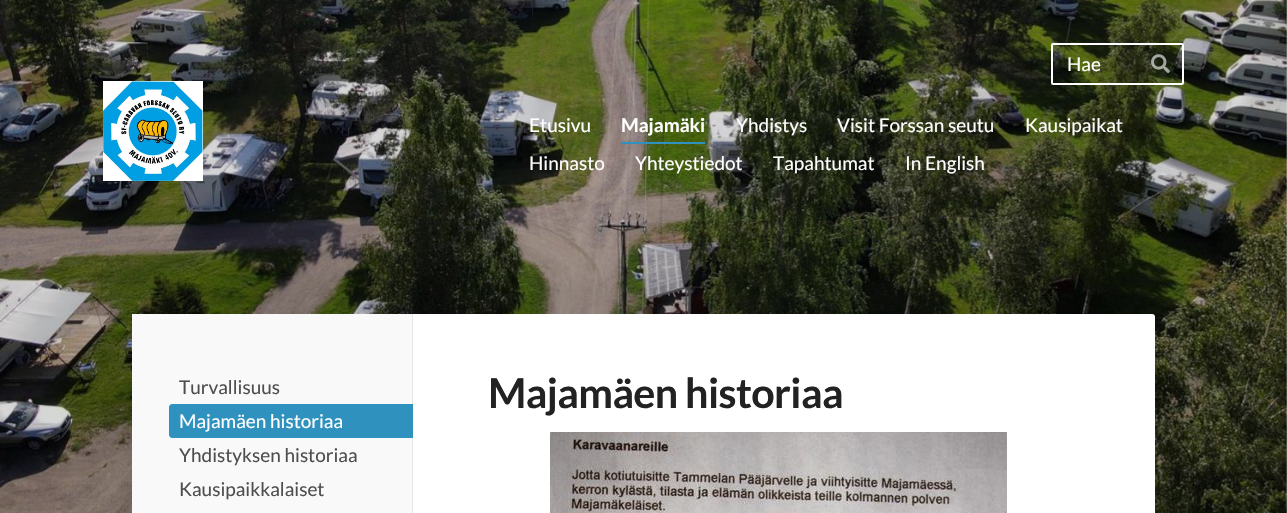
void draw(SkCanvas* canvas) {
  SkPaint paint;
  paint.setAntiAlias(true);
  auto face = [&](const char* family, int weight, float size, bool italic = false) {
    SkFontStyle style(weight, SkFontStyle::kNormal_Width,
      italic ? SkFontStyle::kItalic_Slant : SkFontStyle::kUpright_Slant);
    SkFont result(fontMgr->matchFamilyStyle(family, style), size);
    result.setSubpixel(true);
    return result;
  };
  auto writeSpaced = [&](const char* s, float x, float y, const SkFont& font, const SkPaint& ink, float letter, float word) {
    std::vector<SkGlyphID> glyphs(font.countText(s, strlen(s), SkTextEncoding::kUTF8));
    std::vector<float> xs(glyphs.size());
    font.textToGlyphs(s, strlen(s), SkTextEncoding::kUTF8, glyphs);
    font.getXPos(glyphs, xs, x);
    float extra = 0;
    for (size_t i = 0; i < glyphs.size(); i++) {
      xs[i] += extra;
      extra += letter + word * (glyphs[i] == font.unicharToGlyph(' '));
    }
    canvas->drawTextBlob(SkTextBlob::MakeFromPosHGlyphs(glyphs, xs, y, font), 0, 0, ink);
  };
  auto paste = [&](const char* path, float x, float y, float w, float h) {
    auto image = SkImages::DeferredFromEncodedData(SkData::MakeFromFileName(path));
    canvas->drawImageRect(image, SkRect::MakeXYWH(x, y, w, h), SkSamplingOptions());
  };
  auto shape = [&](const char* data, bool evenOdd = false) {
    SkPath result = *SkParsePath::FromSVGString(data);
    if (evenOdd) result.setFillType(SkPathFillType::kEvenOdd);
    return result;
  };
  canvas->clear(0xffffffff);
  paste("img/1.png", 0, 0, 1287, 513);
  paint.setStroke(true);
  paint.setStrokeWidth(2);
  paint.setColor(0xffffffff);
  canvas->drawRoundRect(SkRect::MakeXYWH(1052, 44, 131, 40), 1, 1, paint);
  paste("img/2.png", 1151, 54, 19, 19);
  paste("img/3.png", 103, 81, 100, 100);
  paint.setStroke(false);
  paint.setColor(0xff2f91be);
  canvas->drawRect(SkRect::MakeXYWH(621, 142, 84, 2), paint);
  paint.setColor(0x1a000000);
  paint.setMaskFilter(SkMaskFilter::MakeBlur(kNormal_SkBlurStyle, 25));
  canvas->drawRoundRect(SkRect::MakeXYWH(132, 264, 1023, 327), 3, 3, paint);
  paint.setMaskFilter(nullptr);
  paint.setColor(0xffffffff);
  canvas->drawRoundRect(SkRect::MakeXYWH(132, 314, 1023, 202), 3, 3, paint);
  paint.setColor(0xfff9f9f9);
  canvas->drawRect(SkRect::MakeXYWH(132, 314, 280, 199), paint);
  paint.setColor(0xffe6e6e6);
  canvas->drawRect(SkRect::MakeXYWH(412, 314, 1, 199), paint);
  paint.setColor(0xff2f91be);
  canvas->drawPath(shape("M172 404H413V438H172C170.5 438 169 436.5 169 435V407C169 405.5 170.5 404 172 404Z"), paint);
  paste("img/4.png", 550, 432, 457, 81);
  auto f0 = face("Lato", 400, 19);
  paint.setColor(0xffffffff);
  canvas->drawString("Hae", 1067, 71, f0, paint);
  canvas->drawString("Etusivu", 529, 132, f0, paint);
  auto f1 = face("Lato", 700, 19);
  canvas->drawString("Majamäki", 621, 132, f1, paint);
  {
    const struct { const char* s; float x, y; } items[] = {
      {"Yhdistys", 736, 132},
      {"Visit Forssan seutu", 837, 132},
      {"Kausipaikat", 1025, 132},
      {"Hinnasto", 529, 170},
      {"Yhteystiedot", 635, 170},
      {"Tapahtumat", 773, 170},
      {"In English", 905, 170},
    };
    for (auto [s, x, y] : items) {
      canvas->drawString(s, x, y, f0, paint);
    }
  }
  paint.setColor(0xff4e4e4e);
  canvas->drawString("Turvallisuus", 179, 394, f0, paint);
  paint.setColor(0xffffffff);
  canvas->drawString("Majamäen historiaa", 179, 428, f0, paint);
  paint.setColor(0xff4e4e4e);
  canvas->drawString("Yhdistyksen historiaa", 179, 462, f0, paint);
  canvas->drawString("Kausipaikkalaiset", 179, 496, f0, paint);
  auto f2 = face("Lato", 700, 41.25f);
  paint.setColor(0xff222222);
  writeSpaced("Majamäen historiaa", 488, 408, f2, paint, -0.6f, 0);
}
